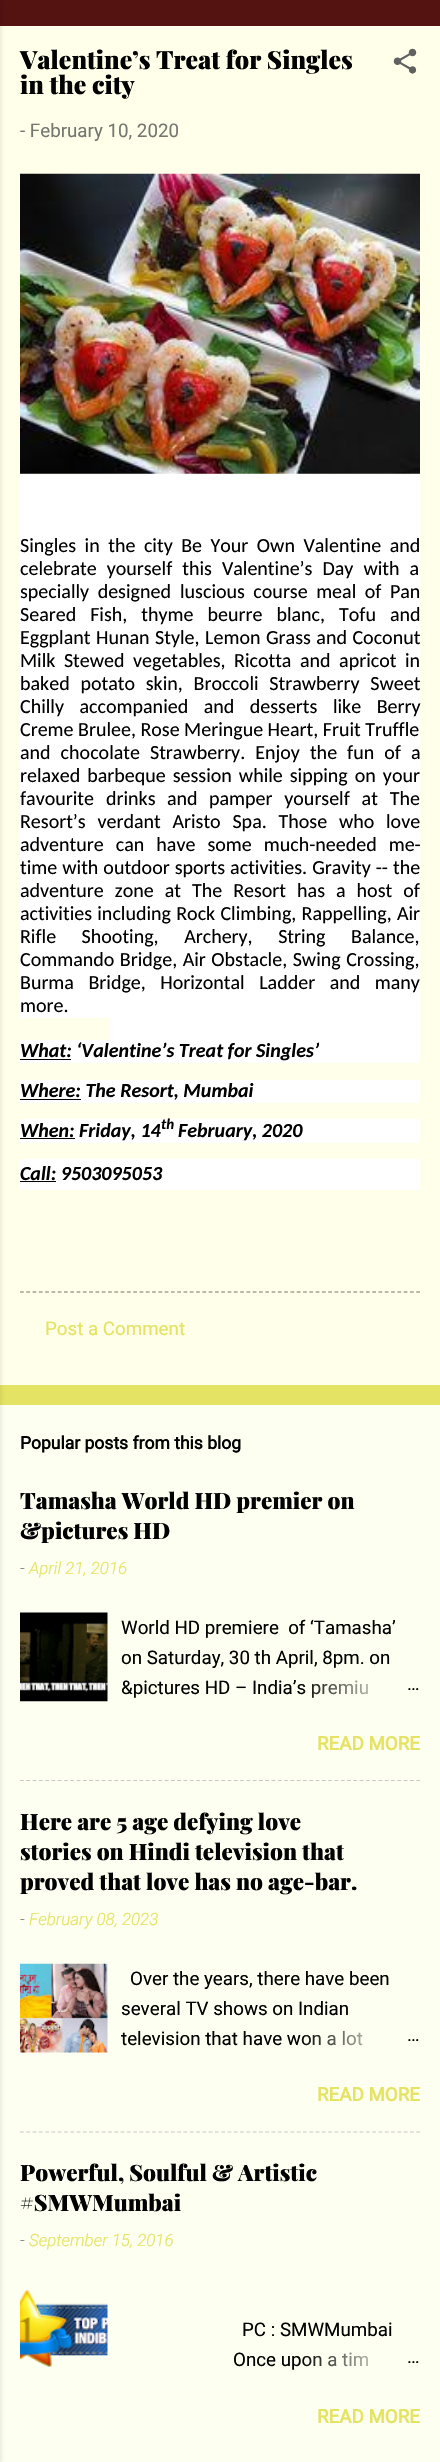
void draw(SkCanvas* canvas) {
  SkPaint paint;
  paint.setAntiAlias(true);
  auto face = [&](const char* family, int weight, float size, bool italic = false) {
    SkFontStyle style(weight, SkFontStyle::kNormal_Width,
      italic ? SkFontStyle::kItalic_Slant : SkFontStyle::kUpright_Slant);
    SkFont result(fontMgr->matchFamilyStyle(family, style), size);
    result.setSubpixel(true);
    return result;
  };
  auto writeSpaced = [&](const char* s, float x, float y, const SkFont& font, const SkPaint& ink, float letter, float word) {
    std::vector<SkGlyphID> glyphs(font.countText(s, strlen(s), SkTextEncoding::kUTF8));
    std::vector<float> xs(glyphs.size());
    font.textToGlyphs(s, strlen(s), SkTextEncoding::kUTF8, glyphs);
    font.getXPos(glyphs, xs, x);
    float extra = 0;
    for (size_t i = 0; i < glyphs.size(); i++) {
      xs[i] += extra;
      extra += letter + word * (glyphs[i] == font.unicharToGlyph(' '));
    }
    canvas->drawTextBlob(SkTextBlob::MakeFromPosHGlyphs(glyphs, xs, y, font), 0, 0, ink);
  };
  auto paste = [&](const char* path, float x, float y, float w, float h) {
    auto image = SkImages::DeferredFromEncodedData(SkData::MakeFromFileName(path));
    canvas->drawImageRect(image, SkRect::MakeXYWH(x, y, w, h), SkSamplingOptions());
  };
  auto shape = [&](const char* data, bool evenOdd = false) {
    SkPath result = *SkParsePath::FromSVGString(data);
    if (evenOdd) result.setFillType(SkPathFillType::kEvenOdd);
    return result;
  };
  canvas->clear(0xffe5e363);
  {
    const struct { float x, y, w, h; SkColor color; } items[] = {
      {0, 0, 440, 26, 0xff541211},
      {0, 26, 440, 1359, 0xffffffea},
      {0, 1405, 440, 1057, 0xfffdfff0},
    };
    for (auto [x, y, w, h, color] : items) {
      paint.setColor(color);
      canvas->drawRect(SkRect::MakeXYWH(x, y, w, h), paint);
    }
  }
  paint.setColor(0x1a000000);
  paint.setMaskFilter(SkMaskFilter::MakeBlur(kNormal_SkBlurStyle, 2));
  canvas->drawRect(SkRect::MakeXYWH(-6, 1, 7, 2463), paint);
  paint.setMaskFilter(nullptr);
  paste("img/1.png", 393, 48, 24, 26);
  paste("img/2.png", 20, 173, 400, 301);
  {
    const struct { float x, y, w, h; SkColor color; } items[] = {
      {20, 474, 400, 544, 0xffffffff},
      {110, 1018, 310, 22, 0xffffffff},
      {20, 1040, 400, 23, 0xffffffff},
      {20, 1059, 51, 1, 0xff000000},
      {20, 1080, 400, 23, 0xffffffff},
      {20, 1099, 61, 1, 0xff000000},
      {20, 1119, 400, 24, 0xffffffff},
      {20, 1138, 55, 1, 0xff000000},
      {20, 1159, 400, 31, 0xffffffff},
      {20, 1181, 36, 1, 0xff000000},
    };
    for (auto [x, y, w, h, color] : items) {
      paint.setColor(color);
      canvas->drawRect(SkRect::MakeXYWH(x, y, w, h), paint);
    }
  }
  paint.setStroke(true);
  paint.setStrokeWidth(1.2f);
  paint.setColor(0xff75756c);
  paint.setPathEffect(SkDashPathEffect::Make({{3.75f, 2.54f}}, 0));
  canvas->drawPath(shape("M20 1292H420"), paint);
  paint.setPathEffect(nullptr);
  paste("img/3.png", 20, 1612, 88, 90);
  paint.setColor(0xffc8c8c8);
  paint.setPathEffect(SkDashPathEffect::Make({{3.75f, 2.54f}}, 0));
  canvas->drawPath(shape("M20 1780.5H420"), paint);
  paint.setPathEffect(nullptr);
  paste("img/4.png", 20, 1963, 88, 90);
  paint.setPathEffect(SkDashPathEffect::Make({{3.75f, 2.54f}}, 0));
  canvas->drawPath(shape("M20 2132H420"), paint);
  paint.setPathEffect(nullptr);
  paste("img/5.png", 20, 2289, 88, 78);
  auto f0 = face("Playfair Display", 900, 25);
  paint.setStroke(false);
  paint.setColor(0xff000000);
  canvas->drawString("Valentine’s Treat for Singles", 20, 69, f0, paint);
  canvas->drawString("in the city", 20, 94, f0, paint);
  auto f1 = face("Roboto", 400, 18.75f);
  paint.setColor(0xff75766f);
  canvas->drawString("- February 10, 2020", 20, 137, f1, paint);
  auto f2 = face("Carlito", 400, 20);
  paint.setColor(0xff000000);
  writeSpaced("Singles in the city Be Your Own Valentine and", 20, 552, f2, paint, 0, 4);
  writeSpaced("celebrate yourself this Valentine’s Day with a", 20, 575, f2, paint, 0, 5.5f);
  writeSpaced("specially designed", 20, 598, f2, paint, 0, 4);
  writeSpaced("luscious course meal of Pan", 180, 598, f2, paint, 0, 4);
  writeSpaced("Seared Fish, thyme beurre blanc, Tofu and", 20, 621, f2, paint, 0, 9.5f);
  writeSpaced("Eggplant Hunan Style, Lemon Grass and Coconut", 20, 644, f2, paint, 0, 1);
  writeSpaced("Milk Stewed vegetables, Ricotta and apricot in", 20, 667, f2, paint, 0, 4);
  writeSpaced("baked potato skin, Broccoli Strawberry Sweet", 20, 690, f2, paint, 0, 6.25f);
  writeSpaced("Chilly accompanied and desserts like Berry", 20, 713, f2, paint, 0, 11);
  canvas->drawString("Creme Brulee, Rose Meringue Heart, Fruit Truffle", 20, 736, f2, paint);
  writeSpaced("and chocolate Strawberry. Enjoy the fun of a", 20, 759, f2, paint, 0, 5.5f);
  writeSpaced("relaxed barbeque session while sipping on your", 20, 782, f2, paint, 0, 2.5f);
  canvas->drawString("favourite", 20, 805, f2, paint);
  canvas->drawString("drinks", 106, 805, f2, paint);
  canvas->drawString("and", 167, 805, f2, paint);
  writeSpaced("pamper yourself at The", 209, 805, f2, paint, 0, 7.25f);
  writeSpaced("Resort’s verdant Aristo Spa. Those who love", 20, 828, f2, paint, 0, 7.25f);
  writeSpaced("adventure can have some much-needed me-", 20, 851, f2, paint, 0, 7.5f);
  writeSpaced("time with outdoor sports activities. Gravity -- the", 20, 874, f2, paint, 0, 0.5f);
  writeSpaced("adventure zone at The Resort has a host of", 20, 897, f2, paint, 0, 6.5f);
  writeSpaced("activities including Rock Climbing, Rappelling, Air", 20, 920, f2, paint, 0, 0.75f);
  writeSpaced("Rifle Shooting, Archery, String Balance,", 20, 943, f2, paint, 0, 21);
  writeSpaced("Commando Bridge, Air Obstacle, Swing Crossing,", 20, 966, f2, paint, 0, 1);
  writeSpaced("Burma Bridge, Horizontal Ladder and many", 20, 989, f2, paint, 0, 10);
  canvas->drawString("more.", 20, 1012, f2, paint);
  auto f3 = face("Carlito", 700, 20, true);
  {
    const struct { const char* s; float x, y; } items[] = {
      {"What: ‘Valentine’s Treat for Singles’", 20, 1057},
      {"Where: The Resort, Mumbai", 20, 1097},
      {"When: Friday, 14", 20, 1137},
    };
    for (auto [s, x, y] : items) {
      canvas->drawString(s, x, y, f3, paint);
    }
  }
  auto f4 = face("Carlito", 700, 15, true);
  canvas->drawString("th", 161, 1129, f4, paint);
  canvas->drawString("February, 2020", 178, 1137, f3, paint);
  canvas->drawString("Call: 9503095053", 20, 1180, f3, paint);
  paint.setColor(0xffe5e363);
  canvas->drawString("Post a Comment", 45, 1335, f1, paint);
  auto f5 = face("Roboto", 700, 17.5f);
  paint.setColor(0xff000000);
  canvas->drawString("Popular posts from this blog", 20, 1449, f5, paint);
  auto f6 = face("Playfair Display", 900, 22.5f);
  canvas->drawString("Tamasha World HD premier on", 20, 1509, f6, paint);
  canvas->drawString("&pictures HD", 20, 1539, f6, paint);
  auto f7 = face("Roboto", 300, 16.9f, true);
  paint.setColor(0xff75766f);
  canvas->drawString("-", 20, 1574, f7, paint);
  paint.setColor(0xffe5e363);
  canvas->drawString("April 21, 2016", 29, 1574, f7, paint);
  paint.setColor(0xff000000);
  {
    const struct { const char* s; float x, y; } items[] = {
      {"World HD premiere  of ‘Tamasha’", 121, 1634},
      {"on Saturday, 30 th April, 8pm. on", 121, 1664},
      {"&pictures HD – India’s premiu", 121, 1694},
    };
    for (auto [s, x, y] : items) {
      canvas->drawString(s, x, y, f1, paint);
    }
  }
  {
    const SkColor colors[] = {0xfffdfff0, 0xfffdfff0, 0x00fdfff0};
    const float stops[] = {0, 0.2f, 1};
    const SkPoint ends[] = {{420, 1688}, {300, 1688}};
    paint.setShader(SkGradientShader::MakeLinear(ends, colors, stops, 3, SkTileMode::kClamp));
    paint.setAlpha(255);
  }
  canvas->drawRect(SkRect::MakeXYWH(302, 1680, 66, 18), paint);
  paint.setShader(nullptr);
  paint.setColor(0xff000000);
  canvas->drawString("…", 407, 1690, f1, paint);
  auto f8 = face("Roboto", 700, 18.75f);
  paint.setColor(0xffe5e363);
  canvas->drawString("READ MORE", 317, 1750, f8, paint);
  paint.setColor(0xff000000);
  {
    const struct { const char* s; float x, y; } items[] = {
      {"Here are 5 age defying love", 20, 1830},
      {"stories on Hindi television that", 20, 1860},
      {"proved that love has no age-bar.", 20, 1890},
    };
    for (auto [s, x, y] : items) {
      canvas->drawString(s, x, y, f6, paint);
    }
  }
  paint.setColor(0xff75766f);
  canvas->drawString("-", 20, 1925, f7, paint);
  paint.setColor(0xffe5e363);
  canvas->drawString("February 08, 2023", 29, 1925, f7, paint);
  paint.setColor(0xff000000);
  {
    const struct { const char* s; float x, y; } items[] = {
      {"Over the years, there have been", 130, 1985},
      {"several TV shows on Indian", 121, 2015},
      {"television that have won a lot", 121, 2045},
    };
    for (auto [s, x, y] : items) {
      canvas->drawString(s, x, y, f1, paint);
    }
  }
  {
    const SkColor colors[] = {0xfffdfff0, 0xfffdfff0, 0x00fdfff0};
    const float stops[] = {0, 0.2f, 1};
    const SkPoint ends[] = {{420, 2039}, {300, 2039}};
    paint.setShader(SkGradientShader::MakeLinear(ends, colors, stops, 3, SkTileMode::kClamp));
    paint.setAlpha(255);
  }
  canvas->drawRect(SkRect::MakeXYWH(302, 2030, 61, 16), paint);
  paint.setShader(nullptr);
  paint.setColor(0xff000000);
  canvas->drawString("…", 407, 2041, f1, paint);
  paint.setColor(0xffe5e363);
  canvas->drawString("READ MORE", 317, 2101, f8, paint);
  paint.setColor(0xff000000);
  canvas->drawString("Powerful, Soulful & Artistic", 20, 2181, f6, paint);
  canvas->drawString("#SMWMumbai", 20, 2211, f6, paint);
  paint.setColor(0xff75766f);
  canvas->drawString("-", 20, 2246, f7, paint);
  paint.setColor(0xffe5e363);
  canvas->drawString("September 15, 2016", 29, 2246, f7, paint);
  paint.setColor(0xff000000);
  canvas->drawString("PC : SMWMumbai", 242, 2336, f1, paint);
  canvas->drawString("Once upon a tim", 233, 2366, f1, paint);
  {
    const SkColor colors[] = {0xfffdfff0, 0xfffdfff0, 0x00fdfff0};
    const float stops[] = {0, 0.2f, 1};
    const SkPoint ends[] = {{420, 2360}, {300, 2360}};
    paint.setShader(SkGradientShader::MakeLinear(ends, colors, stops, 3, SkTileMode::kClamp));
    paint.setAlpha(255);
  }
  canvas->drawRect(SkRect::MakeXYWH(302, 2352, 66, 15), paint);
  paint.setShader(nullptr);
  paint.setColor(0xff000000);
  canvas->drawString("…", 407, 2363, f1, paint);
  paint.setColor(0xffe5e363);
  canvas->drawString("READ MORE", 317, 2423, f8, paint);
}
